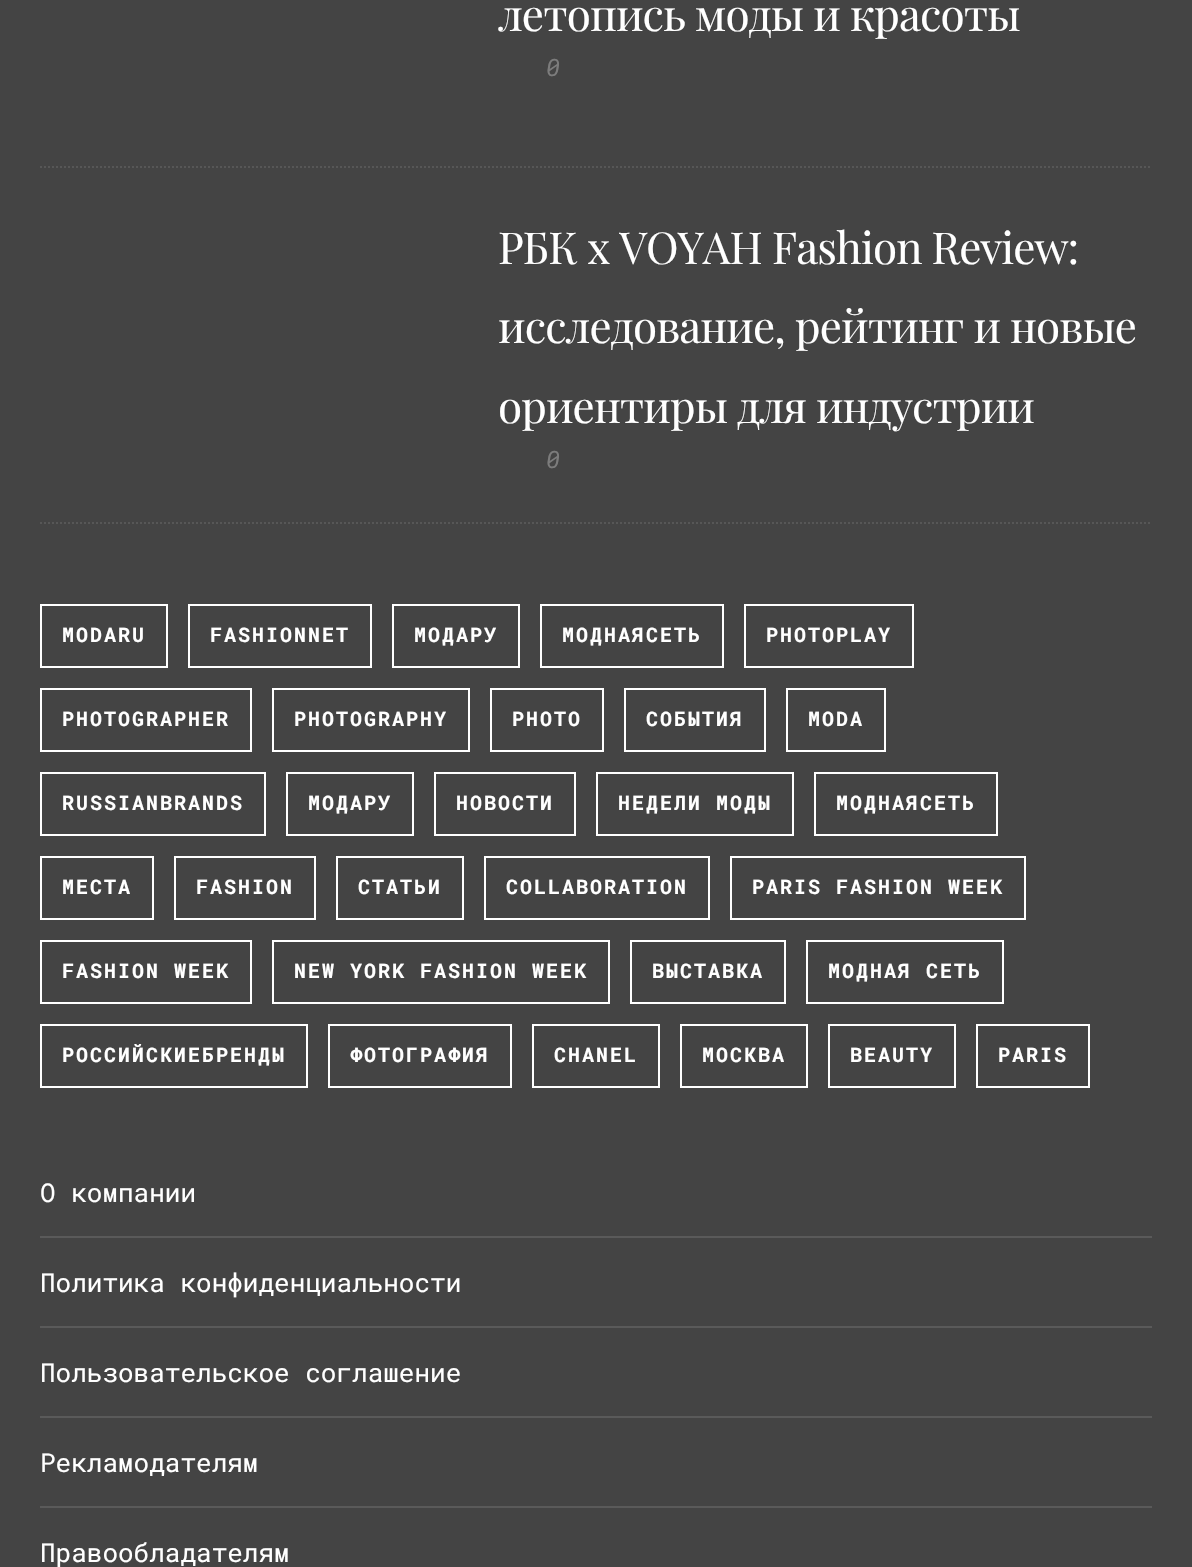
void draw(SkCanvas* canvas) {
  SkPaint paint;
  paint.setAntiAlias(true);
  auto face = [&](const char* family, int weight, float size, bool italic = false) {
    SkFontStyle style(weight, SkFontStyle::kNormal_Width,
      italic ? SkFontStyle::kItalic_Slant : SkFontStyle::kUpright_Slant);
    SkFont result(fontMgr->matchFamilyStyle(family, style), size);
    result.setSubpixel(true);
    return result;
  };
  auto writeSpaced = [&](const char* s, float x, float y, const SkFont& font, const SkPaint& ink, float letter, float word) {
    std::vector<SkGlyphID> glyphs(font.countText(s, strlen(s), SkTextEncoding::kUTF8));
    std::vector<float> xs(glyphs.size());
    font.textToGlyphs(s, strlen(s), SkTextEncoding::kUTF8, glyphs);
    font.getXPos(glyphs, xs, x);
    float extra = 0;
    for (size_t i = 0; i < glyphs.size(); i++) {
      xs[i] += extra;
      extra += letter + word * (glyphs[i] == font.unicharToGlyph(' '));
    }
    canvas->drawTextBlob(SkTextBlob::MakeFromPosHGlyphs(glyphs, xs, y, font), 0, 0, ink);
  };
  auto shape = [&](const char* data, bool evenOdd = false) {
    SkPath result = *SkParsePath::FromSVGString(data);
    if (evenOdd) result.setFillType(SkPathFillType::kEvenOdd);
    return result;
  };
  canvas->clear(0xff444444);
  paint.setStroke(true);
  paint.setStrokeWidth(2);
  paint.setColor(0xff575757);
  paint.setPathEffect(SkDashPathEffect::Make({{2, 2}}, 0));
  canvas->drawPath(shape("M40 167H1152"), paint);
  paint.setPathEffect(nullptr);
  paint.setPathEffect(SkDashPathEffect::Make({{2, 2}}, 0));
  canvas->drawPath(shape("M40 523H1152"), paint);
  paint.setPathEffect(nullptr);
  paint.setColor(0xffffffff);
  canvas->drawRect(SkRect::MakeXYWH(41, 605, 126, 62), paint);
  canvas->drawRect(SkRect::MakeXYWH(189, 605, 182, 62), paint);
  canvas->drawRect(SkRect::MakeXYWH(393, 605, 126, 62), paint);
  canvas->drawRect(SkRect::MakeXYWH(541, 605, 182, 62), paint);
  canvas->drawRect(SkRect::MakeXYWH(745, 605, 168, 62), paint);
  canvas->drawRect(SkRect::MakeXYWH(41, 689, 210, 62), paint);
  canvas->drawRect(SkRect::MakeXYWH(273, 689, 196, 62), paint);
  canvas->drawRect(SkRect::MakeXYWH(491, 689, 112, 62), paint);
  canvas->drawRect(SkRect::MakeXYWH(625, 689, 140, 62), paint);
  canvas->drawRect(SkRect::MakeXYWH(787, 689, 98, 62), paint);
  canvas->drawRect(SkRect::MakeXYWH(41, 773, 224, 62), paint);
  canvas->drawRect(SkRect::MakeXYWH(287, 773, 126, 62), paint);
  canvas->drawRect(SkRect::MakeXYWH(435, 773, 140, 62), paint);
  canvas->drawRect(SkRect::MakeXYWH(597, 773, 196, 62), paint);
  canvas->drawRect(SkRect::MakeXYWH(815, 773, 182, 62), paint);
  canvas->drawRect(SkRect::MakeXYWH(41, 857, 112, 62), paint);
  canvas->drawRect(SkRect::MakeXYWH(175, 857, 140, 62), paint);
  canvas->drawRect(SkRect::MakeXYWH(337, 857, 126, 62), paint);
  canvas->drawRect(SkRect::MakeXYWH(485, 857, 224, 62), paint);
  canvas->drawRect(SkRect::MakeXYWH(731, 857, 294, 62), paint);
  canvas->drawRect(SkRect::MakeXYWH(41, 941, 210, 62), paint);
  canvas->drawRect(SkRect::MakeXYWH(273, 941, 336, 62), paint);
  canvas->drawRect(SkRect::MakeXYWH(631, 941, 154, 62), paint);
  canvas->drawRect(SkRect::MakeXYWH(807, 941, 196, 62), paint);
  canvas->drawRect(SkRect::MakeXYWH(41, 1025, 266, 62), paint);
  canvas->drawRect(SkRect::MakeXYWH(329, 1025, 182, 62), paint);
  canvas->drawRect(SkRect::MakeXYWH(533, 1025, 126, 62), paint);
  canvas->drawRect(SkRect::MakeXYWH(681, 1025, 126, 62), paint);
  canvas->drawRect(SkRect::MakeXYWH(829, 1025, 126, 62), paint);
  canvas->drawRect(SkRect::MakeXYWH(977, 1025, 112, 62), paint);
  paint.setStroke(false);
  {
    const struct { float x, y, w, h; SkColor color; } items[] = {
      {40, 1236, 1112, 2, 0xff5a5a5a},
      {40, 1326, 1112, 2, 0xff5a5a5a},
      {40, 1416, 1112, 2, 0xff5a5a5a},
      {40, 1506, 1112, 2, 0xff5a5a5a},
    };
    for (auto [x, y, w, h, color] : items) {
      paint.setColor(color);
      canvas->drawRect(SkRect::MakeXYWH(x, y, w, h), paint);
    }
  }
  auto f0 = face("Playfair Display", 400, 44);
  paint.setColor(0xffffffff);
  writeSpaced("летопись моды и красоты", 498, 31, f0, paint, -0.9f, 0);
  auto f1 = face("Roboto Mono", 400, 24, true);
  paint.setColor(0xff7c7c7c);
  canvas->drawString("0", 546, 76, f1, paint);
  paint.setColor(0xffffffff);
  {
    const struct { const char* s; float x, y; } items[] = {
      {"РБК х VOYAH Fashion Review:", 498, 264},
      {"исследование, рейтинг и новые", 498, 343},
      {"ориентиры для индустрии", 498, 423},
    };
    for (auto [s, x, y] : items) {
      writeSpaced(s, x, y, f0, paint, -0.9f, 0);
    }
  }
  paint.setColor(0xff7c7c7c);
  canvas->drawString("0", 546, 468, f1, paint);
  auto f2 = face("Roboto Mono", 700, 20);
  paint.setColor(0xffffffff);
  {
    const struct { const char* s; float x, y; } items[] = {
      {"MODARU", 62, 642},
      {"FASHIONNET", 210, 642},
      {"МОДАРУ", 414, 642},
      {"МОДНАЯСЕТЬ", 562, 642},
      {"PHOTOPLAY", 766, 642},
      {"PHOTOGRAPHER", 62, 726},
      {"PHOTOGRAPHY", 294, 726},
      {"PHOTO", 512, 726},
      {"СОБЫТИЯ", 646, 726},
      {"MODA", 808, 726},
      {"RUSSIANBRANDS", 62, 810},
      {"МОДАРУ", 308, 810},
      {"НОВОСТИ", 456, 810},
      {"НЕДЕЛИ МОДЫ", 618, 810},
      {"МОДНАЯСЕТЬ", 836, 810},
      {"МЕСТА", 62, 894},
      {"FASHION", 196, 894},
      {"СТАТЬИ", 358, 894},
      {"COLLABORATION", 506, 894},
      {"PARIS FASHION WEEK", 752, 894},
      {"FASHION WEEK", 62, 978},
      {"NEW YORK FASHION WEEK", 294, 978},
      {"ВЫСТАВКА", 652, 978},
      {"МОДНАЯ СЕТЬ", 828, 978},
      {"РОССИЙСКИЕБРЕНДЫ", 62, 1062},
      {"ФОТОГРАФИЯ", 350, 1062},
      {"CHANEL", 554, 1062},
      {"МОСКВА", 702, 1062},
      {"BEAUTY", 850, 1062},
      {"PARIS", 998, 1062},
    };
    for (auto [s, x, y] : items) {
      writeSpaced(s, x, y, f2, paint, 2, 0);
    }
  }
  auto f3 = face("Roboto Mono", 400, 26);
  {
    const struct { const char* s; float x, y; } items[] = {
      {"О компании", 40, 1202},
      {"Политика конфиденциальности", 40, 1292},
      {"Пользовательское соглашение", 40, 1382},
      {"Рекламодателям", 40, 1472},
      {"Правообладателям", 40, 1562},
    };
    for (auto [s, x, y] : items) {
      canvas->drawString(s, x, y, f3, paint);
    }
  }
}
